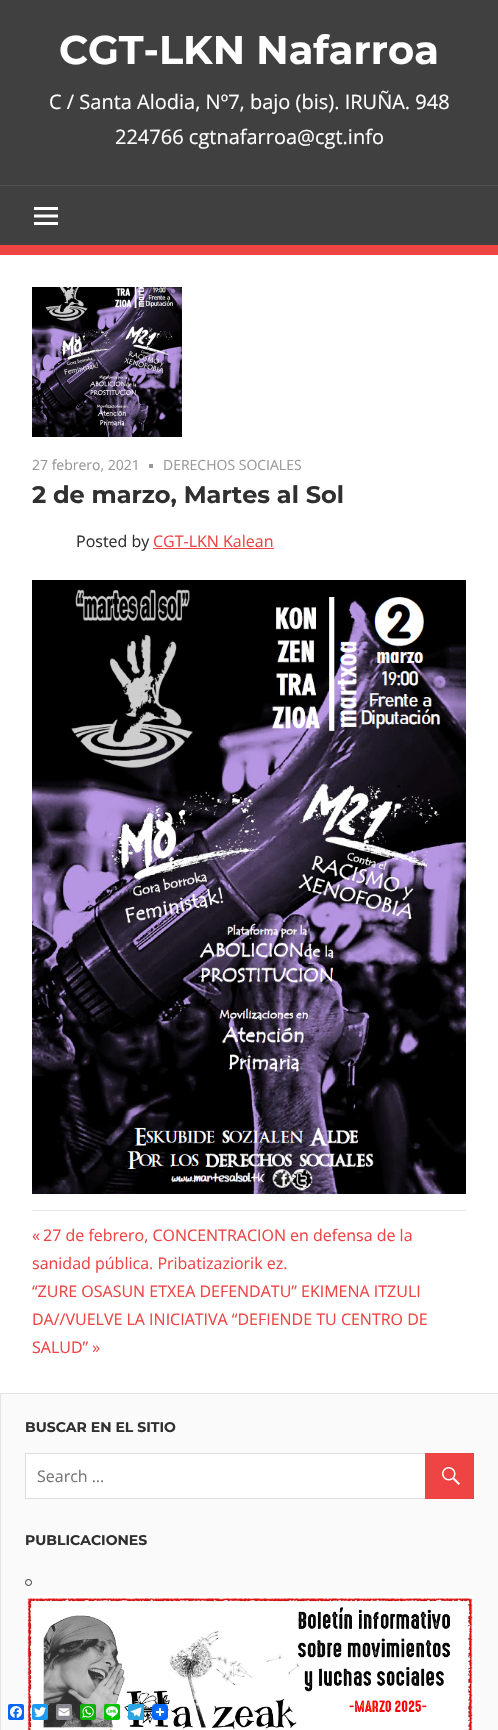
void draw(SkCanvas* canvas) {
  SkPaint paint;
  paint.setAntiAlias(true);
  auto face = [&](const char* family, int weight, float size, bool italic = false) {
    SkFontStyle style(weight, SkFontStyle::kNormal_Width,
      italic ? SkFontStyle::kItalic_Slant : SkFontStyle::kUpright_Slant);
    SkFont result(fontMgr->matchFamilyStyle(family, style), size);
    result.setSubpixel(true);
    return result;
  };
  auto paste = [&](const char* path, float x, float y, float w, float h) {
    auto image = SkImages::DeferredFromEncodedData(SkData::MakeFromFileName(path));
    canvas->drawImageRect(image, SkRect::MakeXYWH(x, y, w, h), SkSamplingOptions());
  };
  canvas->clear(0xff404040);
  paint.setColor(0xffee4444);
  canvas->drawRect(SkRect::MakeXYWH(0, 245, 498, 10), paint);
  paint.setColor(0xff535353);
  canvas->drawRect(SkRect::MakeXYWH(0, 185, 498, 1), paint);
  paste("img/1.png", 34, 207, 24, 18);
  paint.setColor(0xffffffff);
  canvas->drawRect(SkRect::MakeXYWH(0, 255, 498, 1138), paint);
  paste("img/2.png", 32, 287, 150, 150);
  paint.setColor(0xff999999);
  canvas->drawRect(SkRect::MakeXYWH(149, 464, 4, 4), paint);
  paint.setColor(0xffee4444);
  canvas->drawRect(SkRect::MakeXYWH(153, 548, 121, 1), paint);
  paste("img/3.png", 32, 580, 434, 614);
  {
    const struct { float x, y, w, h; SkColor color; } items[] = {
      {32, 1210, 434, 1, 0xffe5e5e5},
      {1, 1394, 497, 336, 0xfffafafa},
      {0, 1393, 498, 1, 0xffe5e5e5},
      {0, 1393, 1, 337, 0xffe5e5e5},
      {26, 1454, 399, 44, 0xffffffff},
    };
    for (auto [x, y, w, h, color] : items) {
      paint.setColor(color);
      canvas->drawRect(SkRect::MakeXYWH(x, y, w, h), paint);
    }
  }
  paint.setStroke(true);
  paint.setStrokeWidth(1);
  paint.setColor(0xffdddddd);
  canvas->drawRect(SkRect::MakeXYWH(25.5f, 1453.5f, 448, 45), paint);
  paint.setStroke(false);
  paint.setColor(0xffee4444);
  canvas->drawRect(SkRect::MakeXYWH(425, 1453, 49, 46), paint);
  paste("img/4.png", 442, 1467, 18, 18);
  paint.setStroke(true);
  paint.setColor(0xff303030);
  canvas->drawCircle(28.5f, 1582.5f, 3, paint);
  paste("img/5.png", 25, 1595, 449, 135);
  paint.setStroke(false);
  paint.setColor(0xff0866ff);
  canvas->drawRoundRect(SkRect::MakeXYWH(8, 1704, 16, 16), 2, 2, paint);
  paste("img/6.png", 10, 1706, 12, 12);
  paint.setColor(0xff1d9bf0);
  canvas->drawRoundRect(SkRect::MakeXYWH(32, 1704, 16, 16), 2, 2, paint);
  paste("img/7.png", 34, 1707, 12, 10);
  paint.setColor(0xff888990);
  canvas->drawRoundRect(SkRect::MakeXYWH(56, 1704, 16, 16), 2, 2, paint);
  paste("img/8.png", 58, 1708, 12, 8);
  paint.setColor(0xff12af0a);
  canvas->drawRoundRect(SkRect::MakeXYWH(80, 1704, 16, 16), 2, 2, paint);
  paste("img/9.png", 82, 1706, 12, 12);
  paint.setColor(0xff00c300);
  canvas->drawRoundRect(SkRect::MakeXYWH(104, 1704, 16, 16), 2, 2, paint);
  paste("img/10.png", 106, 1706, 12, 12);
  paint.setColor(0xff2ca5e0);
  canvas->drawRoundRect(SkRect::MakeXYWH(128, 1704, 16, 16), 2, 2, paint);
  paste("img/11.png", 130, 1707, 12, 10);
  paste("img/12.png", 152, 1704, 16, 16);
  auto f0 = face("Montserrat", 700, 40);
  paint.setColor(0xffffffff);
  canvas->drawString("CGT-LKN Nafarroa", 59, 64, f0, paint);
  auto f1 = face("Open Sans", 400, 20);
  canvas->drawString("C / Santa Alodia, Nº7, bajo (bis). IRUÑA. 948", 49, 109, f1, paint);
  canvas->drawString("224766 cgtnafarroa@cgt.info", 115, 144, f1, paint);
  auto f2 = face("Open Sans", 400, 14);
  paint.setColor(0xff999999);
  canvas->drawString("27 febrero, 2021", 32, 470, f2, paint);
  canvas->drawString("DERECHOS SOCIALES", 163, 470, f2, paint);
  auto f3 = face("Montserrat", 700, 24);
  paint.setColor(0xff303030);
  canvas->drawString("2 de marzo, Martes al Sol", 32, 503, f3, paint);
  auto f4 = face("Open Sans", 400, 16);
  canvas->drawString("Posted by", 76, 547, f4, paint);
  paint.setColor(0xffee4444);
  {
    const struct { const char* s; float x, y; } items[] = {
      {"CGT-LKN Kalean", 153, 547},
      {"«", 32, 1241},
      {"27 de febrero, CONCENTRACION en defensa de la", 43, 1241},
      {"sanidad pública. Pribatizaziorik ez.", 32, 1269},
      {"“ZURE OSASUN ETXEA DEFENDATU” EKIMENA ITZULI", 32, 1297},
      {"DA//VUELVE LA INICIATIVA “DEFIENDE TU CENTRO DE", 32, 1325},
      {"SALUD” »", 32, 1353},
    };
    for (auto [s, x, y] : items) {
      canvas->drawString(s, x, y, f4, paint);
    }
  }
  auto f5 = face("Montserrat", 700, 14);
  paint.setColor(0xff303030);
  canvas->drawString("BUSCAR EN EL SITIO", 25, 1432, f5, paint);
  paint.setColor(0xff757575);
  canvas->drawString("Search …", 37, 1482, f4, paint);
  paint.setColor(0xff303030);
  canvas->drawString("PUBLICACIONES", 25, 1545, f5, paint);
}
